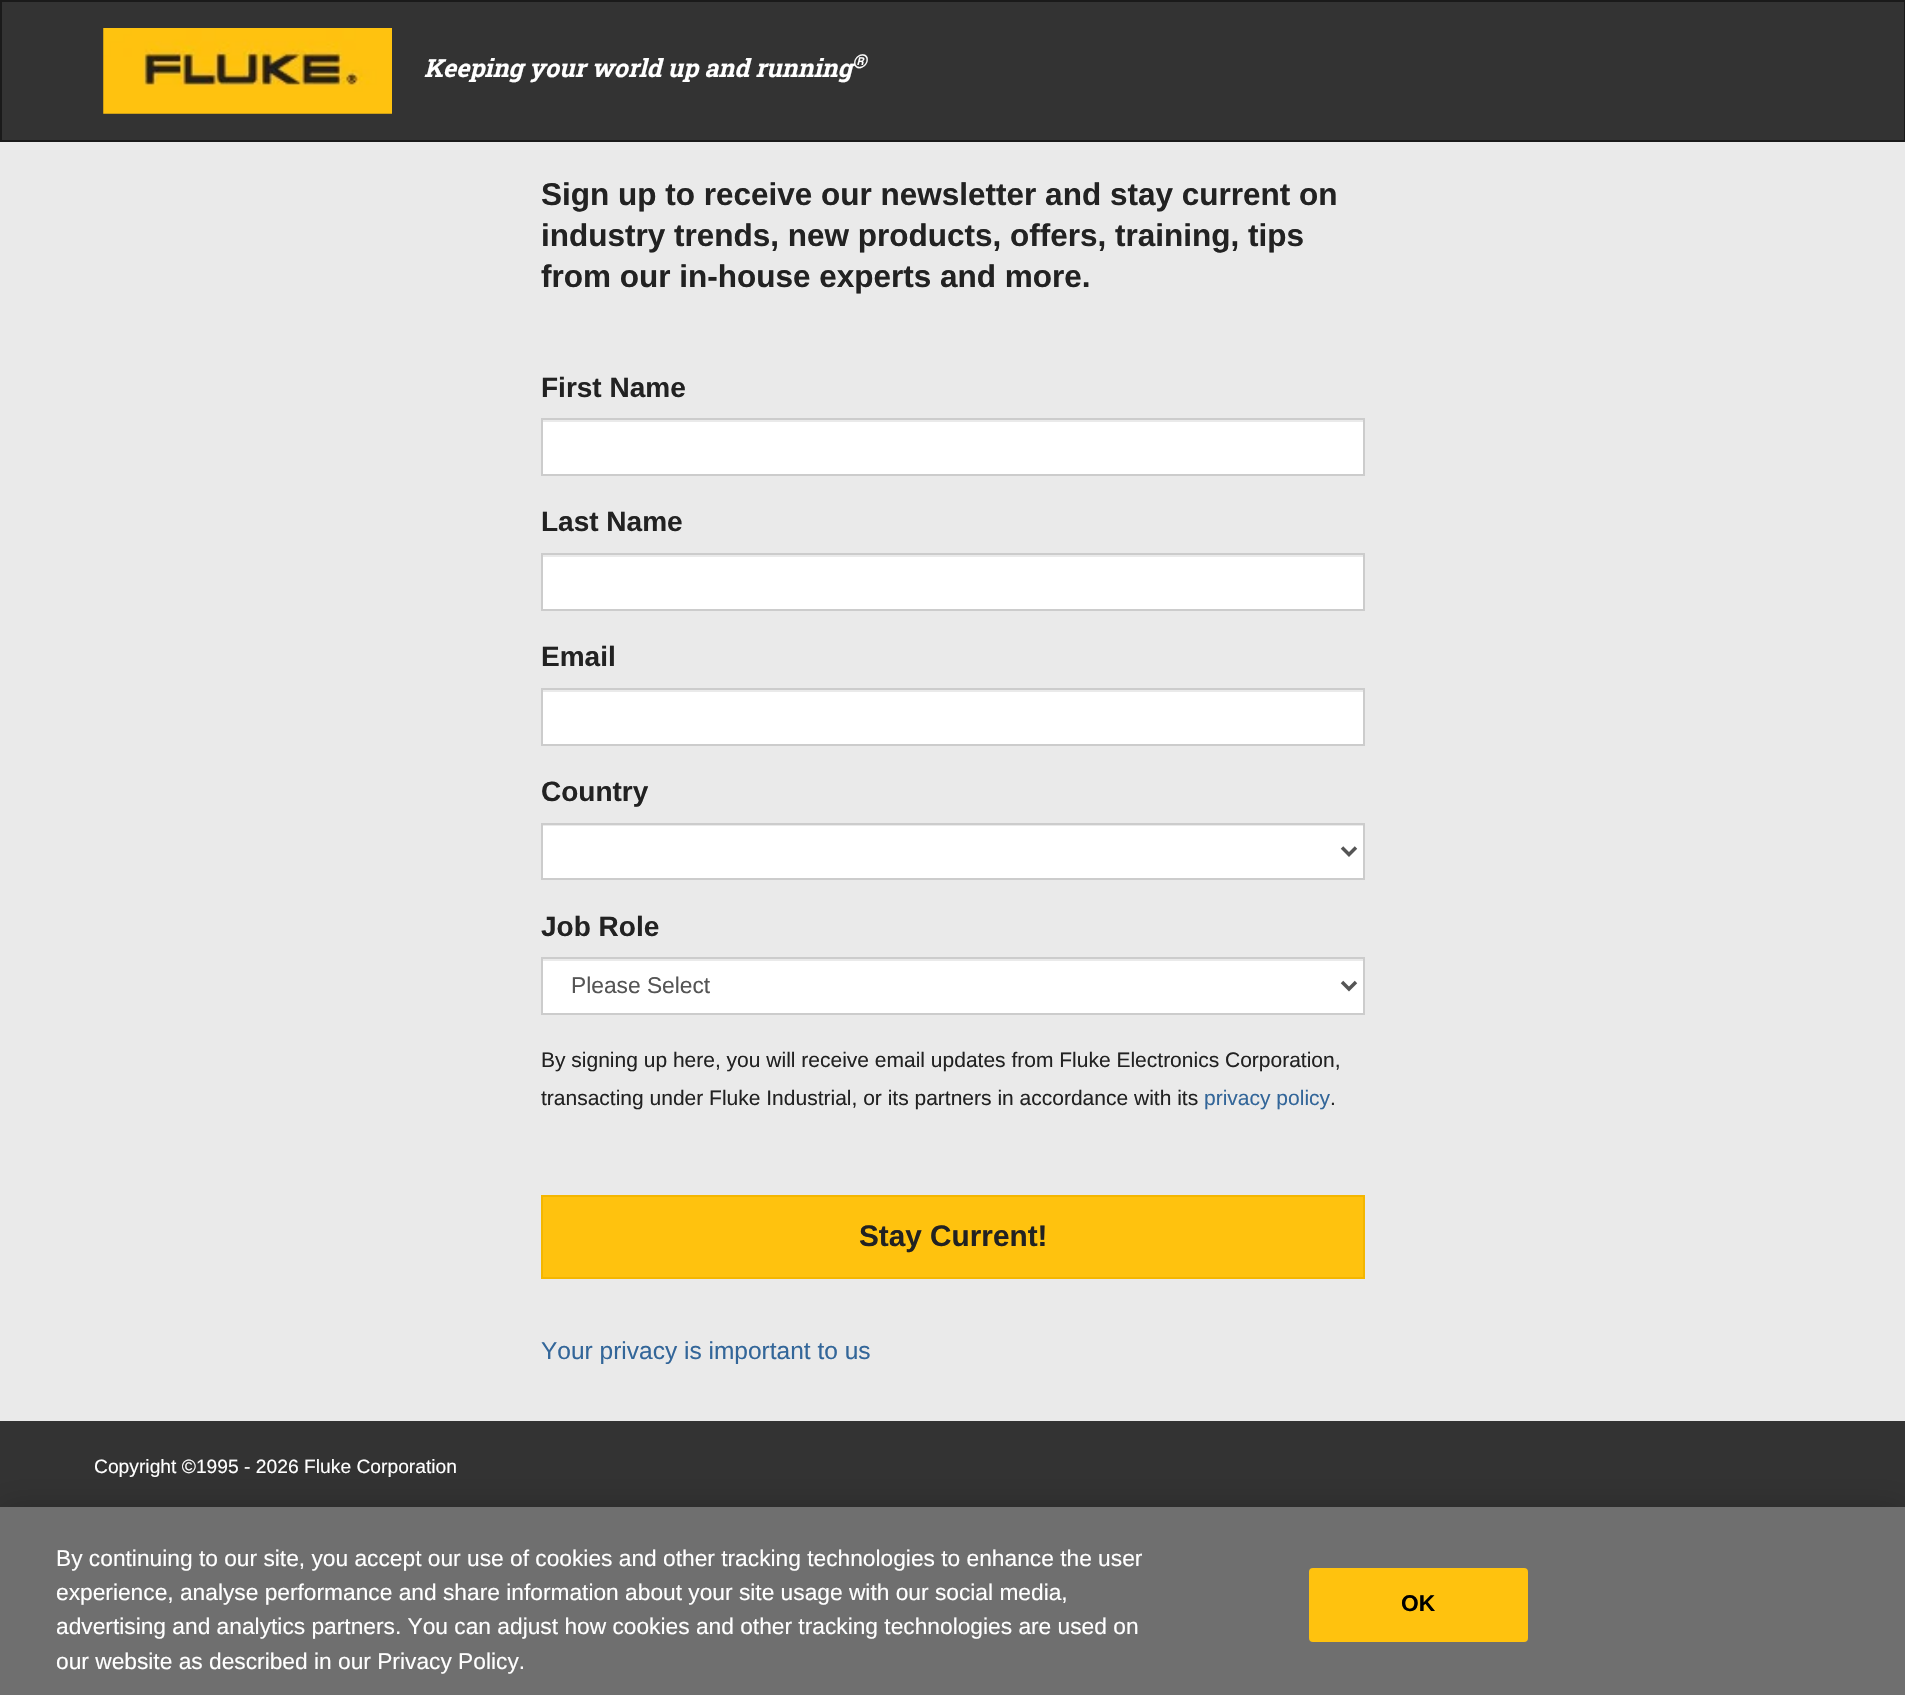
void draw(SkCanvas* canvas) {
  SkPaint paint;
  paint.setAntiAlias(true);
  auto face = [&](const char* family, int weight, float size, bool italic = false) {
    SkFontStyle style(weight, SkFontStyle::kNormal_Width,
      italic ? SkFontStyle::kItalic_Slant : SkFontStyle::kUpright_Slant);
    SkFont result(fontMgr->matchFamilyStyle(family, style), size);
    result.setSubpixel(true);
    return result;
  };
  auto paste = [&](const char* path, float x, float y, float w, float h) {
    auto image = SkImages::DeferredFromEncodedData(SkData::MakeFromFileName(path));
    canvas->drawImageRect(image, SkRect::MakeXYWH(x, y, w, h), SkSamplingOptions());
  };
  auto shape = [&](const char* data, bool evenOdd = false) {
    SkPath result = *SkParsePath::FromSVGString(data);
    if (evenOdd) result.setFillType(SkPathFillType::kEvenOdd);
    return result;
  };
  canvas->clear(0xffeaeaea);
  paint.setColor(0xff333333);
  canvas->drawRect(SkRect::MakeXYWH(1, 1, 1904, 140), paint);
  paint.setStroke(true);
  paint.setStrokeWidth(2);
  paint.setColor(0xff1a1a1a);
  canvas->drawRect(SkRect::MakeXYWH(1, 1, 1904, 140), paint);
  paste("img/1.png", 103, 28, 289, 86);
  paint.setStroke(false);
  paint.setColor(0xffffffff);
  canvas->drawRect(SkRect::MakeXYWH(543, 422, 820, 52), paint);
  paint.setStroke(true);
  paint.setColor(0xffcccccc);
  canvas->drawRect(SkRect::MakeXYWH(542, 419, 822, 56), paint);
  paint.setStroke(false);
  paint.setColor(0xffffffff);
  canvas->drawRect(SkRect::MakeXYWH(543, 557, 820, 52), paint);
  paint.setStroke(true);
  paint.setColor(0xffcccccc);
  canvas->drawRect(SkRect::MakeXYWH(542, 554, 822, 56), paint);
  paint.setStroke(false);
  paint.setColor(0xffffffff);
  canvas->drawRect(SkRect::MakeXYWH(543, 692, 820, 52), paint);
  paint.setStroke(true);
  paint.setColor(0xffcccccc);
  canvas->drawRect(SkRect::MakeXYWH(542, 689, 822, 56), paint);
  paint.setStroke(false);
  paint.setColor(0xffffffff);
  canvas->drawRect(SkRect::MakeXYWH(543, 826, 820, 52), paint);
  paint.setStroke(true);
  paint.setColor(0xffcccccc);
  canvas->drawRect(SkRect::MakeXYWH(542, 824, 822, 55), paint);
  paint.setStrokeWidth(3.5f);
  paint.setColor(0xff555555);
  canvas->drawPath(shape("M1342 847.5L1349 854.5L1356 847.5"), paint);
  paint.setStroke(false);
  paint.setColor(0xffffffff);
  canvas->drawRect(SkRect::MakeXYWH(543, 961, 820, 52), paint);
  paint.setStroke(true);
  paint.setStrokeWidth(2);
  paint.setColor(0xffcccccc);
  canvas->drawRect(SkRect::MakeXYWH(542, 958, 822, 56), paint);
  paint.setStrokeWidth(3.5f);
  paint.setColor(0xff555555);
  canvas->drawPath(shape("M1342 982L1349 989L1356 982"), paint);
  paint.setStroke(false);
  paint.setColor(0xffffc20e);
  canvas->drawRect(SkRect::MakeXYWH(542, 1196, 822, 82), paint);
  paint.setStroke(true);
  paint.setStrokeWidth(2);
  paint.setColor(0xfff4b600);
  canvas->drawRect(SkRect::MakeXYWH(542, 1196, 822, 82), paint);
  paint.setStroke(false);
  paint.setColor(0xff333333);
  canvas->drawRect(SkRect::MakeXYWH(0, 1421, 1905, 86), paint);
  paint.setColor(0x33000000);
  paint.setMaskFilter(SkMaskFilter::MakeBlur(kNormal_SkBlurStyle, 16));
  canvas->drawRect(SkRect::MakeXYWH(0, 1507, 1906, 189), paint);
  paint.setMaskFilter(nullptr);
  paint.setColor(0xff6f6f6f);
  canvas->drawRect(SkRect::MakeXYWH(0, 1507, 1905, 188), paint);
  paint.setColor(0xffffc20e);
  canvas->drawRoundRect(SkRect::MakeXYWH(1310, 1569, 217, 72), 3, 3, paint);
  paint.setStroke(true);
  canvas->drawRoundRect(SkRect::MakeXYWH(1310, 1569, 217, 72), 3, 3, paint);
  auto f0 = face("Roboto Slab", 700, 25, true);
  paint.setStroke(false);
  paint.setColor(0xffffffff);
  canvas->drawString("Keeping your world up and running", 424, 77, f0, paint);
  auto f1 = face("Roboto Slab", 700, 19, true);
  canvas->drawString("®", 852, 68, f1, paint);
  auto f2 = face("Liberation Sans", 700, 31.5f);
  paint.setColor(0xff222222);
  {
    const struct { const char* s; float x, y; } items[] = {
      {"Sign up to receive our newsletter and stay current on", 541, 205},
      {"industry trends, new products, offers, training, tips", 541, 246},
      {"from our in-house experts and more.", 541, 287},
    };
    for (auto [s, x, y] : items) {
      canvas->drawString(s, x, y, f2, paint);
    }
  }
  auto f3 = face("Liberation Sans", 700, 28);
  {
    const struct { const char* s; float x, y; } items[] = {
      {"First Name", 541, 397},
      {"Last Name", 541, 531},
      {"Email", 541, 666},
      {"Country", 541, 801},
      {"Job Role", 541, 936},
    };
    for (auto [s, x, y] : items) {
      canvas->drawString(s, x, y, f3, paint);
    }
  }
  auto f4 = face("Liberation Sans", 400, 22.75f);
  paint.setColor(0xff555555);
  canvas->drawString("Please Select", 571, 993, f4, paint);
  auto f5 = face("Liberation Sans", 400, 21);
  paint.setColor(0xff222222);
  canvas->drawString("By signing up here, you will receive email updates from Fluke Electronics Corporation,", 541, 1067, f5, paint);
  canvas->drawString("transacting under Fluke Industrial, or its partners in accordance with its", 541, 1105, f5, paint);
  paint.setColor(0xff336699);
  canvas->drawString("privacy policy", 1204, 1105, f5, paint);
  paint.setColor(0xff222222);
  canvas->drawString(".", 1330, 1105, f5, paint);
  auto f6 = face("Liberation Sans", 700, 29.75f);
  canvas->drawString("Stay Current!", 859, 1246, f6, paint);
  auto f7 = face("Liberation Sans", 400, 24.5f);
  paint.setColor(0xff336699);
  canvas->drawString("Your privacy is important to us", 541, 1359, f7, paint);
  auto f8 = face("Liberation Sans", 400, 19.25f);
  paint.setColor(0xffffffff);
  canvas->drawString("Copyright ©1995 - 2026 Fluke Corporation", 94, 1473, f8, paint);
  {
    const struct { const char* s; float x, y; } items[] = {
      {"By continuing to our site, you accept our use of cookies and other tracking technologies to enhance the user", 56, 1566},
      {"experience, analyse performance and share information about your site usage with our social media,", 56, 1600},
      {"advertising and analytics partners. You can adjust how cookies and other tracking technologies are used on", 56, 1634},
      {"our website as described in our Privacy Policy.", 56, 1669},
    };
    for (auto [s, x, y] : items) {
      canvas->drawString(s, x, y, f4, paint);
    }
  }
  auto f9 = face("Liberation Sans", 700, 22.75f);
  paint.setColor(0xff000000);
  canvas->drawString("OK", 1401, 1611, f9, paint);
}
